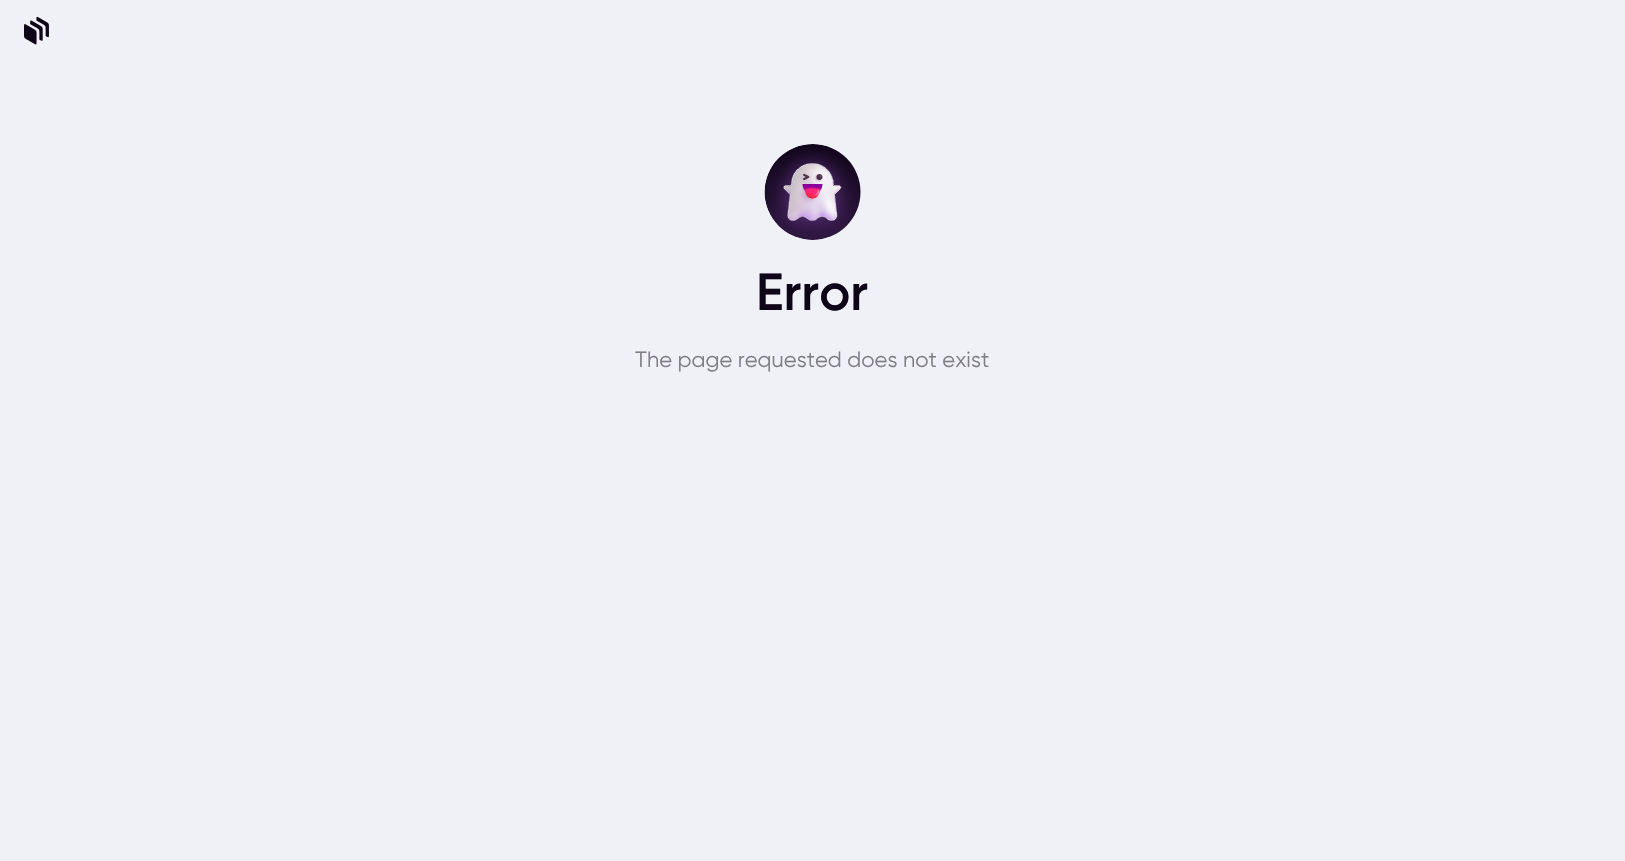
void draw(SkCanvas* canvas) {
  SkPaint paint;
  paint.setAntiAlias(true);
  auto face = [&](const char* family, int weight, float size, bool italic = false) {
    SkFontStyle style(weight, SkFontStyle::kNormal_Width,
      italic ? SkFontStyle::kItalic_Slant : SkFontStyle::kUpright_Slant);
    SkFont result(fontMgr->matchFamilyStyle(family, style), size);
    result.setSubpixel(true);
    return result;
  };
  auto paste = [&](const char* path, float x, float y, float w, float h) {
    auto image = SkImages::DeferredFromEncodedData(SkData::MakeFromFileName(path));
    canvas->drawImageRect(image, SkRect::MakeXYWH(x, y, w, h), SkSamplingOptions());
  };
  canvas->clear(0xffeff1f6);
  paste("img/1.png", 24, 16, 25, 29);
  paste("img/2.png", 764, 144, 97, 96);
  auto f0 = face("Gilroy", 600, 52);
  paint.setColor(0xff0f0518);
  canvas->drawString("Error", 756, 310, f0, paint);
  auto f1 = face("Gilroy", 400, 22);
  paint.setColor(0xff7f7b87);
  canvas->drawString("The page requested does not exist", 635, 367, f1, paint);
}
